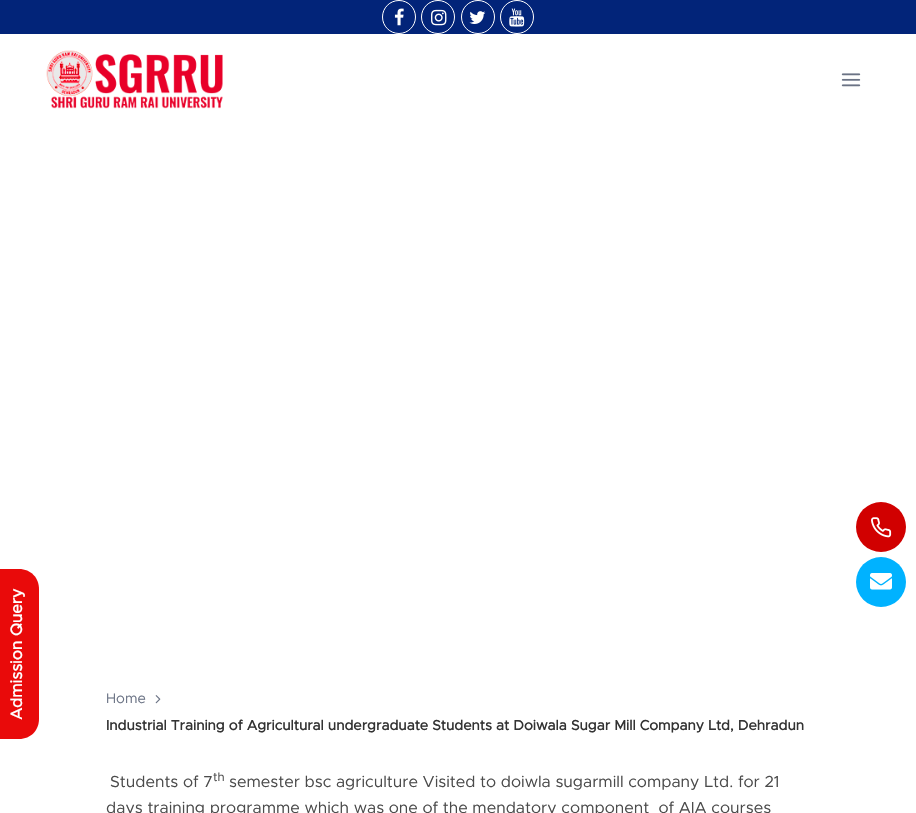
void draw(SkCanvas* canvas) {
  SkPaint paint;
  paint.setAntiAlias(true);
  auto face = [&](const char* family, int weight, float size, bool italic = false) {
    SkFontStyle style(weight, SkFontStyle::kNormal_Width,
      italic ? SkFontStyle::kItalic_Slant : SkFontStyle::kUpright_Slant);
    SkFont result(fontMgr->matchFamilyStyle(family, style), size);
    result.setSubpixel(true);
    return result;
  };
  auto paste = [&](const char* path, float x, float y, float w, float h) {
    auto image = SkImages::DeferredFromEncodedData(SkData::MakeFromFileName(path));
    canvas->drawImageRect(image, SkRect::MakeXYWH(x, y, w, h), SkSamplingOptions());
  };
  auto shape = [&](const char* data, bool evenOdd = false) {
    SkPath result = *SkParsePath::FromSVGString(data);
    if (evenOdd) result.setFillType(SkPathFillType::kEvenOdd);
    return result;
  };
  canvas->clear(0xffffffff);
  paint.setColor(0xff022479);
  canvas->drawRect(SkRect::MakeXYWH(0, 0, 916, 34), paint);
  paint.setStroke(true);
  paint.setStrokeWidth(1);
  paint.setColor(0xffffffff);
  canvas->drawCircle(399, 17, 16.5f, paint);
  paste("img/1.png", 394, 8, 10, 18);
  canvas->drawCircle(438, 17, 16.5f, paint);
  paste("img/2.png", 431, 9, 16, 17);
  canvas->drawCircle(478, 17, 16.5f, paint);
  paste("img/3.png", 469, 11, 17, 13);
  canvas->drawCircle(517, 17, 16.5f, paint);
  paste("img/4.png", 509, 8, 16, 19);
  paste("img/5.png", 46, 50, 177, 59);
  paste("img/6.png", 841, 73, 20, 14);
  paint.setStroke(false);
  paint.setColor(0xffd10000);
  canvas->drawCircle(881, 527, 25, paint);
  paste("img/7.png", 871, 517, 21, 21);
  paint.setColor(0xff00b2ff);
  canvas->drawCircle(881, 582, 25, paint);
  paste("img/8.png", 870, 573, 22, 17);
  paint.setColor(0xffe90a0a);
  canvas->drawPath(shape("M-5 739V569H19C31 569 39 578 39 589V719C39 730 31 739 19 739Z"), paint);
  paste("img/9.png", 155, 695, 6, 9);
  auto f0 = face("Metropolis", 700, 16);
  paint.setColor(0xffffffff);
  canvas->save();
  canvas->rotate(-90, 22, 720);
  canvas->drawString("Admission Query", 22, 720, f0, paint);
  canvas->restore();
  auto f1 = face("Metropolis", 400, 14);
  paint.setColor(0xff6b7385);
  canvas->drawString("Home", 106, 703, f1, paint);
  auto f2 = face("Metropolis", 700, 14);
  paint.setColor(0xff333333);
  canvas->drawString("Industrial Training of Agricultural undergraduate Students at Doiwala Sugar Mill Company Ltd, Dehradun", 106, 730, f2, paint);
  auto f3 = face("Metropolis", 400, 16);
  paint.setColor(0xff4b4b4b);
  canvas->drawString("Students of 7", 110, 787, f3, paint);
  auto f4 = face("Metropolis", 400, 12);
  canvas->drawString("th", 213, 781, f4, paint);
  canvas->drawString("semester bsc agriculture Visited to doiwla sugarmill company Ltd. for 21", 229, 787, f3, paint);
  canvas->drawString("days training programme which was one of the mendatory component  of AIA courses", 106, 813, f3, paint);
}
